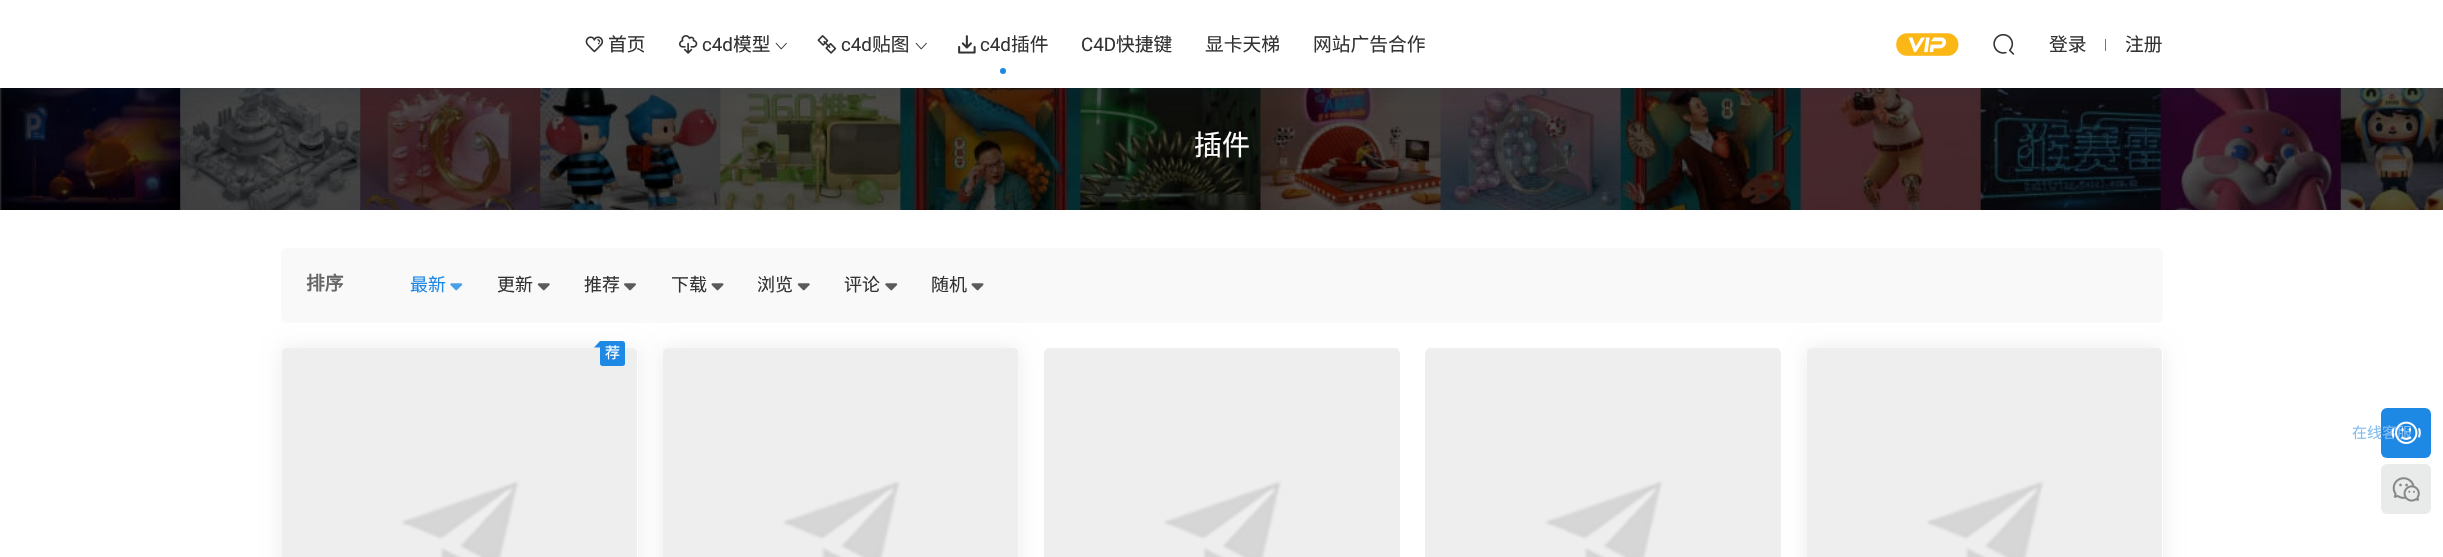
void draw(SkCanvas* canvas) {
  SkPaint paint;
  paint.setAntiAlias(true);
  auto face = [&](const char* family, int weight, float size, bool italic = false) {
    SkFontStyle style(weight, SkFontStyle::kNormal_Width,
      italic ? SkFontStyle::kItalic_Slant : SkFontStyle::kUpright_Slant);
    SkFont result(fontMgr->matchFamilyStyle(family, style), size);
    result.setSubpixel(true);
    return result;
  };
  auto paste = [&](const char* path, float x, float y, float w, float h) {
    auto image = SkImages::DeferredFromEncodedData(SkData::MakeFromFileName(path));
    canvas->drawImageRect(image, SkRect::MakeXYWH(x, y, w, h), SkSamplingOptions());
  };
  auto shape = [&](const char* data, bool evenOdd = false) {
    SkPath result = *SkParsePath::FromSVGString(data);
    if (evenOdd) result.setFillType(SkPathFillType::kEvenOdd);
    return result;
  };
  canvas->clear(0xffffffff);
  paste("img/8.png", 0, 88, 2443, 122);
  paint.setColor(0x1a113a5d);
  paint.setMaskFilter(SkMaskFilter::MakeBlur(kNormal_SkBlurStyle, 6));
  canvas->drawRect(SkRect::MakeXYWH(0, 5, 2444, 88), paint);
  paint.setMaskFilter(nullptr);
  paint.setColor(0xffffffff);
  canvas->drawRect(SkRect::MakeXYWH(0, 0, 2443, 88), paint);
  paste("img/1.png", 585, 36, 19, 17);
  paste("img/2.png", 679, 35, 19, 19);
  paste("img/3.png", 775, 42, 12, 8);
  paste("img/4.png", 817, 35, 20, 19);
  paste("img/3.png", 915, 42, 12, 8);
  paste("img/5.png", 958, 35, 18, 19);
  paint.setColor(0xff1e88e5);
  canvas->drawCircle(1003, 71, 3, paint);
  paste("img/6.png", 1896, 33, 63, 23);
  paste("img/7.png", 1993, 33, 22, 22);
  paint.setColor(0xff777777);
  canvas->drawRect(SkRect::MakeXYWH(2105, 39, 1, 12), paint);
  paint.setColor(0xfff9f9f9);
  canvas->drawRoundRect(SkRect::MakeXYWH(281, 248, 1882, 75), 6, 6, paint);
  paste("img/9.png", 450, 283, 13, 8);
  paste("img/10.png", 537, 283, 13, 8);
  paste("img/11.png", 624, 283, 12, 8);
  paste("img/12.png", 711, 283, 13, 8);
  paste("img/10.png", 797, 283, 13, 8);
  paste("img/13.png", 885, 283, 13, 8);
  paste("img/12.png", 971, 283, 13, 8);
  paint.setColor(0x12000000);
  paint.setMaskFilter(SkMaskFilter::MakeBlur(kNormal_SkBlurStyle, 9.5f));
  canvas->drawRoundRect(SkRect::MakeXYWH(281, 348, 357, 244), 6, 6, paint);
  paint.setMaskFilter(nullptr);
  paint.setColor(0xffffffff);
  canvas->drawRoundRect(SkRect::MakeXYWH(281, 348, 357, 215), 6, 6, paint);
  paste("img/14.png", 281, 348, 356, 209);
  paint.setColor(0xff1e88e5);
  canvas->drawPath(shape("M600 341H622.5C624 341 625 342 625 343.5V363.5C625 365 624 366 622.5 366H602.5C601 366 600 365 600 363.5Z"), paint);
  canvas->drawPath(shape("M600 347.5H594L600 341Z"), paint);
  paint.setColor(0x12000000);
  paint.setMaskFilter(SkMaskFilter::MakeBlur(kNormal_SkBlurStyle, 9.5f));
  canvas->drawRoundRect(SkRect::MakeXYWH(663, 348, 356, 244), 6, 6, paint);
  paint.setMaskFilter(nullptr);
  paint.setColor(0xffffffff);
  canvas->drawRoundRect(SkRect::MakeXYWH(663, 348, 356, 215), 6, 6, paint);
  paste("img/15.png", 663, 348, 356, 209);
  paste("img/16.png", 1044, 348, 356, 209);
  paste("img/17.png", 1425, 348, 356, 209);
  paint.setColor(0x12000000);
  paint.setMaskFilter(SkMaskFilter::MakeBlur(kNormal_SkBlurStyle, 9.5f));
  canvas->drawRoundRect(SkRect::MakeXYWH(1806, 348, 357, 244), 6, 6, paint);
  paint.setMaskFilter(nullptr);
  paint.setColor(0xffffffff);
  canvas->drawRoundRect(SkRect::MakeXYWH(1806, 348, 357, 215), 6, 6, paint);
  paste("img/14.png", 1806, 348, 356, 209);
  paint.setColor(0xff1e88e5);
  canvas->drawRoundRect(SkRect::MakeXYWH(2381, 408, 50, 50), 6, 6, paint);
  paint.setColor(0xffe9eaea);
  canvas->drawRoundRect(SkRect::MakeXYWH(2381, 464, 50, 50), 6, 6, paint);
  paste("img/19.png", 2392, 477, 28, 25);
  auto f0 = face("Noto Sans CJK SC", 400, 18.75f);
  paint.setColor(0xff333333);
  canvas->drawString("首页", 608, 51, f0, paint);
  auto f1 = face("Roboto", 400, 18.75f);
  canvas->drawString("c4d", 702, 51, f1, paint);
  canvas->drawString("模型", 733, 51, f0, paint);
  canvas->drawString("c4d", 841, 51, f1, paint);
  canvas->drawString("贴图", 872, 51, f0, paint);
  canvas->drawString("c4d", 980, 51, f1, paint);
  canvas->drawString("插件", 1011, 51, f0, paint);
  canvas->drawString("C4D", 1081, 51, f1, paint);
  {
    const struct { const char* s; float x, y; } items[] = {
      {"快捷键", 1116, 51},
      {"显卡天梯", 1205, 51},
      {"网站广告合作", 1313, 51},
      {"登录", 2049, 51},
      {"注册", 2125, 51},
    };
    for (auto [s, x, y] : items) {
      canvas->drawString(s, x, y, f0, paint);
    }
  }
  auto f2 = face("Noto Sans CJK SC", 400, 28);
  paint.setColor(0xffffffff);
  canvas->drawString("插件", 1194, 155, f2, paint);
  auto f3 = face("Noto Sans CJK SC", 700, 18.75f);
  paint.setColor(0xff666666);
  canvas->drawString("排序", 306, 290, f3, paint);
  auto f4 = face("Noto Sans CJK SC", 400, 18);
  paint.setColor(0xff1e88e5);
  canvas->drawString("最新", 410, 291, f4, paint);
  paint.setColor(0xff333333);
  {
    const struct { const char* s; float x, y; } items[] = {
      {"更新", 497, 291},
      {"推荐", 584, 291},
      {"下载", 671, 291},
      {"浏览", 757, 291},
      {"评论", 844, 291},
      {"随机", 931, 291},
    };
    for (auto [s, x, y] : items) {
      canvas->drawString(s, x, y, f4, paint);
    }
  }
  auto f5 = face("Noto Sans CJK SC", 400, 15);
  paint.setColor(0xffffffff);
  canvas->drawString("荐", 605, 358, f5, paint);
  paint.setColor(0xff82bdf1);
  canvas->drawString("在线客服", 2352, 438, f5, paint);
  paste("img/18.png", 2391, 421, 30, 23);
}
